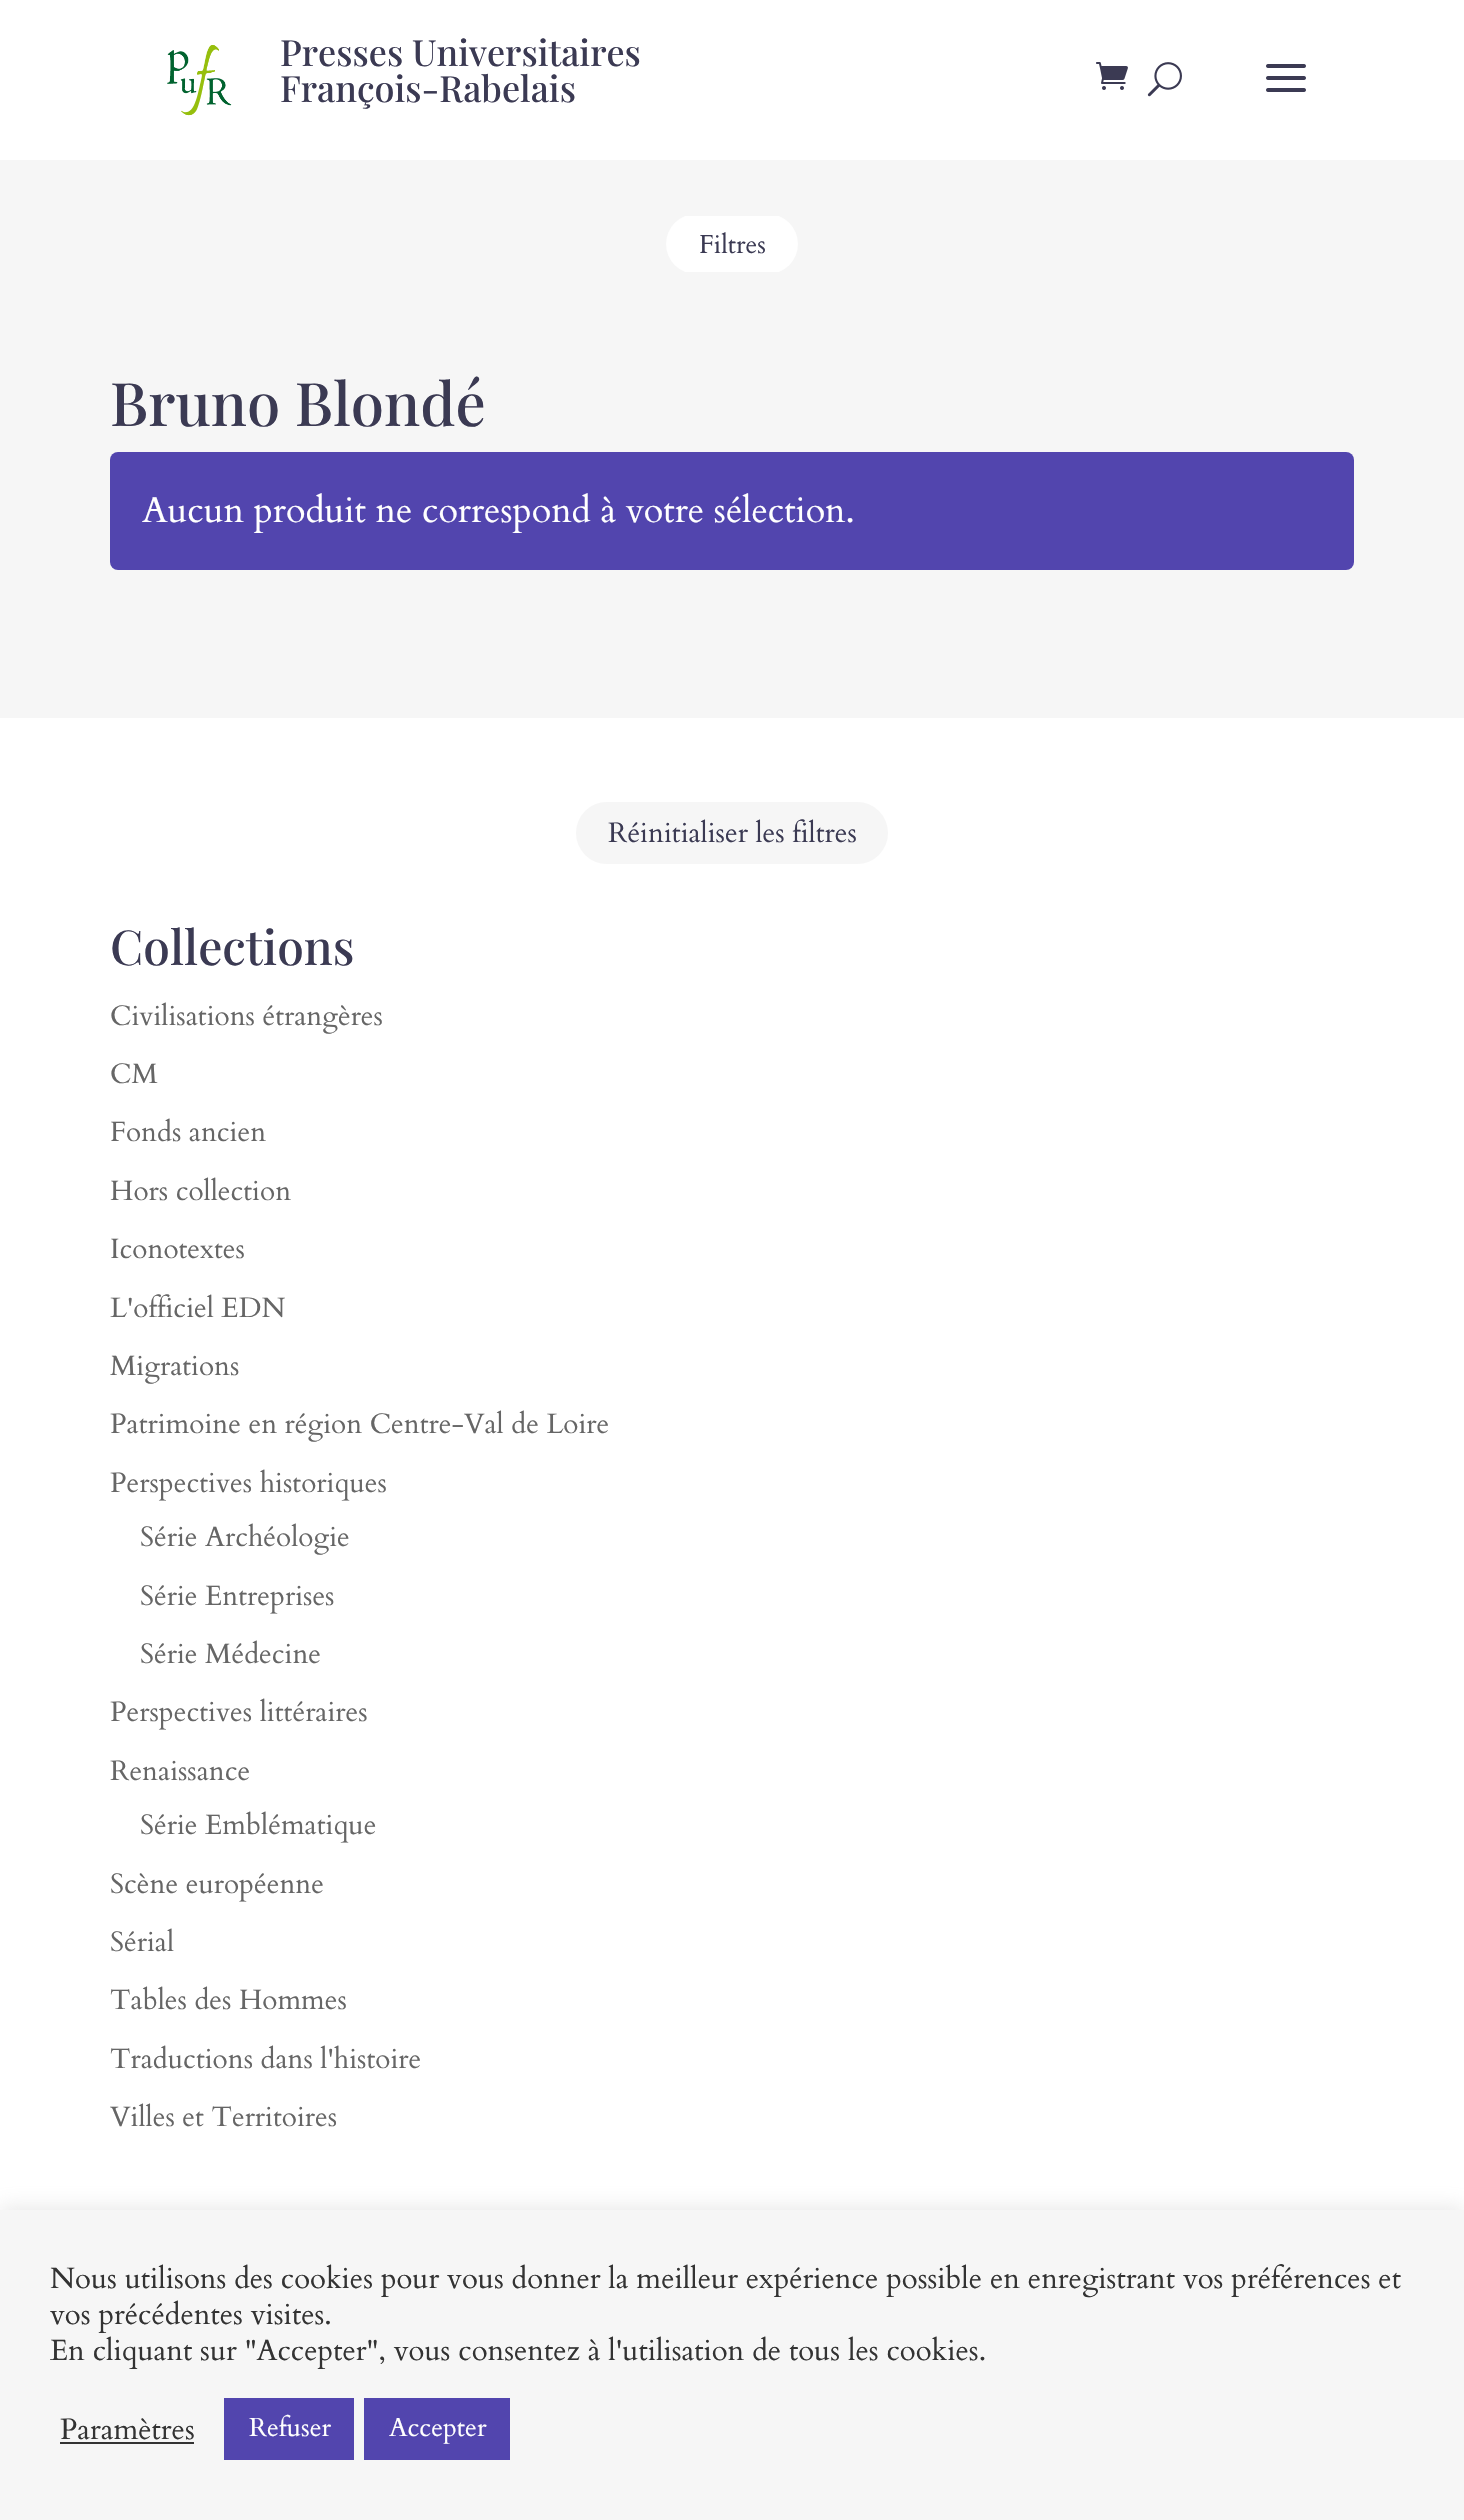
void draw(SkCanvas* canvas) {
  SkPaint paint;
  paint.setAntiAlias(true);
  auto face = [&](const char* family, int weight, float size, bool italic = false) {
    SkFontStyle style(weight, SkFontStyle::kNormal_Width,
      italic ? SkFontStyle::kItalic_Slant : SkFontStyle::kUpright_Slant);
    SkFont result(fontMgr->matchFamilyStyle(family, style), size);
    result.setSubpixel(true);
    return result;
  };
  auto paste = [&](const char* path, float x, float y, float w, float h) {
    auto image = SkImages::DeferredFromEncodedData(SkData::MakeFromFileName(path));
    canvas->drawImageRect(image, SkRect::MakeXYWH(x, y, w, h), SkSamplingOptions());
  };
  canvas->clear(0xffffffff);
  paste("img/1.png", 167, 45, 65, 71);
  paste("img/2.png", 1096, 62, 32, 28);
  paste("img/3.png", 1147, 62, 35, 35);
  paste("img/4.png", 1266, 64, 40, 28);
  paint.setColor(0xfff6f6f6);
  canvas->drawRect(SkRect::MakeXYWH(0, 160, 1464, 558), paint);
  canvas->save();
  canvas->clipRect(SkRect::MakeXYWH(110, 216, 1244, 56));
  paint.setColor(0xffffffff);
  canvas->drawRoundRect(SkRect::MakeXYWH(666, 214, 132, 60), 30, 30, paint);
  canvas->restore();
  paint.setColor(0xff5245ae);
  canvas->drawRoundRect(SkRect::MakeXYWH(110, 452, 1244, 118), 8, 8, paint);
  paint.setColor(0xfff6f6f6);
  canvas->drawRoundRect(SkRect::MakeXYWH(576, 802, 312, 62), 31, 31, paint);
  paint.setColor(0x4dacabab);
  paint.setMaskFilter(SkMaskFilter::MakeBlur(kNormal_SkBlurStyle, 10));
  canvas->drawRect(SkRect::MakeXYWH(0, 2208, 1464, 310), paint);
  paint.setMaskFilter(nullptr);
  {
    const struct { float x, y, w, h; SkColor color; } items[] = {
      {0, 2210, 1464, 310, 0xfff6f6f6},
      {60, 2442, 134, 2, 0xff333333},
      {224, 2398, 130, 62, 0xff5245ae},
      {364, 2398, 146, 62, 0xff5245ae},
    };
    for (auto [x, y, w, h, color] : items) {
      paint.setColor(color);
      canvas->drawRect(SkRect::MakeXYWH(x, y, w, h), paint);
    }
  }
  auto f0 = face("Playfair Display", 500, 36);
  paint.setColor(0xff3b3a53);
  canvas->drawString("Presses Universitaires", 280, 66, f0, paint);
  canvas->drawString("François-Rabelais", 280, 102, f0, paint);
  auto f1 = face("Cardo", 400, 26);
  canvas->drawString("Filtres", 699, 253, f1, paint);
  auto f2 = face("Playfair Display", 500, 60);
  canvas->drawString("Bruno Blondé", 110, 426, f2, paint);
  auto f3 = face("Cardo", 400, 36);
  paint.setColor(0xffffffff);
  canvas->drawString("Aucun produit ne correspond à votre sélection.", 142, 522, f3, paint);
  auto f4 = face("Cardo", 400, 28);
  paint.setColor(0xff3b3a53);
  canvas->drawString("Réinitialiser les filtres", 608, 842, f4, paint);
  auto f5 = face("Playfair Display", 500, 48);
  canvas->drawString("Collections", 110, 965, f5, paint);
  paint.setColor(0xff666666);
  {
    const struct { const char* s; float x, y; } items[] = {
      {"Civilisations étrangères", 110, 1025},
      {"CM", 110, 1083},
      {"Fonds ancien", 110, 1141},
      {"Hors collection", 110, 1200},
      {"Iconotextes", 110, 1258},
      {"L'officiel EDN", 110, 1317},
      {"Migrations", 110, 1375},
      {"Patrimoine en région Centre-Val de Loire", 110, 1433},
      {"Perspectives historiques", 110, 1492},
      {"Série Archéologie", 140, 1546},
      {"Série Entreprises", 140, 1605},
      {"Série Médecine", 140, 1663},
      {"Perspectives littéraires", 110, 1721},
      {"Renaissance", 110, 1780},
      {"Série Emblématique", 140, 1834},
      {"Scène européenne", 110, 1893},
      {"Sérial", 110, 1951},
      {"Tables des Hommes", 110, 2009},
      {"Traductions dans l'histoire", 110, 2068},
      {"Villes et Territoires", 110, 2126},
    };
    for (auto [s, x, y] : items) {
      canvas->drawString(s, x, y, f4, paint);
    }
  }
  auto f6 = face("Cardo", 400, 29.35f);
  paint.setColor(0xff333333);
  {
    const struct { const char* s; float x, y; } items[] = {
      {"Nous utilisons des cookies pour vous donner la meilleur expérience possible en enregistrant vos préférences et", 50, 2288},
      {"vos précédentes visites.", 50, 2324},
      {"En cliquant sur \"Accepter\", vous consentez à l'utilisation de tous les cookies.", 50, 2360},
      {"Paramètres", 60, 2439},
    };
    for (auto [s, x, y] : items) {
      canvas->drawString(s, x, y, f6, paint);
    }
  }
  paint.setColor(0xffffffff);
  canvas->drawString("Refuser", 249, 2436, f1, paint);
  canvas->drawString("Accepter", 389, 2436, f1, paint);
}
